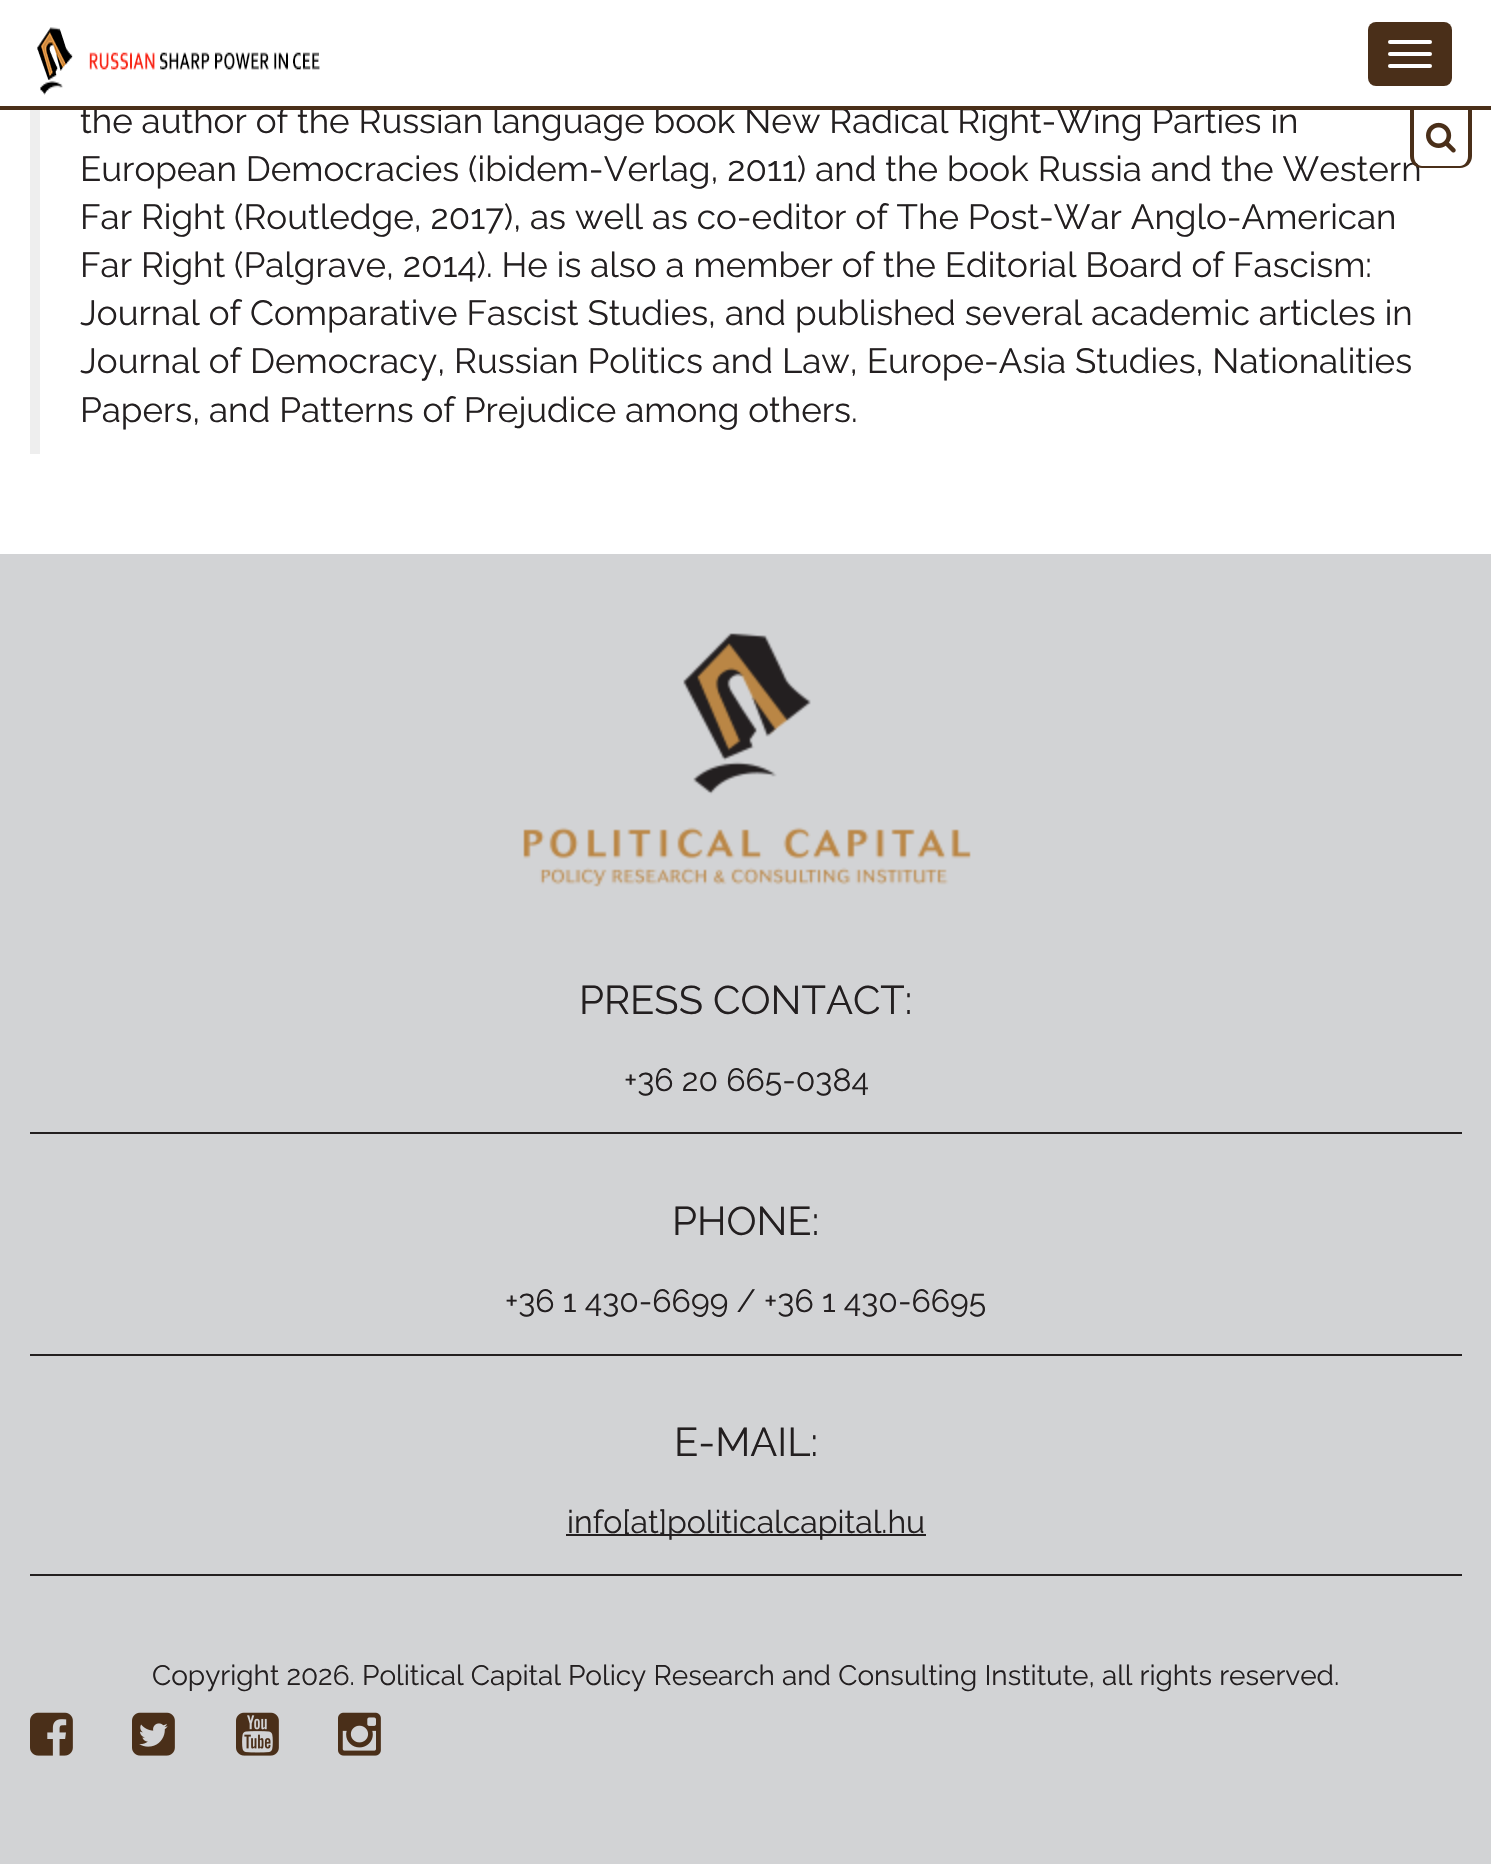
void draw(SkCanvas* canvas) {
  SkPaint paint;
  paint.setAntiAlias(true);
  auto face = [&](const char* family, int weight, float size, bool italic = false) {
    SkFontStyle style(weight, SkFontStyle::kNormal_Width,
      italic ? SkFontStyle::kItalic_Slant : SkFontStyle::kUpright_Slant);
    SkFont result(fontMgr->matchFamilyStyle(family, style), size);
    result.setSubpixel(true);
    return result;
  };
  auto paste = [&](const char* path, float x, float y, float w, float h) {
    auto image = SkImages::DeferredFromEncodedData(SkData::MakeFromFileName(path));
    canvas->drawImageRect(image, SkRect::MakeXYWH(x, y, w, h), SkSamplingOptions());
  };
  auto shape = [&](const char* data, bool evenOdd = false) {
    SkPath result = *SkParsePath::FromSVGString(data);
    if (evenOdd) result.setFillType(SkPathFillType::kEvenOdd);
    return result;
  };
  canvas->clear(0xffffffff);
  paste("img/1.png", 37, 27, 283, 68);
  paint.setColor(0xff4a2f19);
  canvas->drawRoundRect(SkRect::MakeXYWH(1368, 22, 84, 64), 8, 8, paint);
  paint.setColor(0xffffffff);
  canvas->drawRoundRect(SkRect::MakeXYWH(1388, 40, 44, 4), 2, 2, paint);
  canvas->drawRoundRect(SkRect::MakeXYWH(1388, 52, 44, 4), 2, 2, paint);
  canvas->drawRoundRect(SkRect::MakeXYWH(1388, 64, 44, 4), 2, 2, paint);
  paint.setColor(0xffeeeeee);
  canvas->drawRect(SkRect::MakeXYWH(30, 110, 10, 344), paint);
  paint.setColor(0xffd2d3d5);
  canvas->drawRect(SkRect::MakeXYWH(0, 554, 1491, 1310), paint);
  paste("img/3.png", 523, 633, 448, 254);
  {
    const struct { float x, y, w, h; SkColor color; } items[] = {
      {30, 1132, 1432, 2, 0xff231f20},
      {30, 1354, 1432, 2, 0xff231f20},
      {30, 1574, 1432, 2, 0xff231f20},
      {566, 1534, 360, 2, 0xff231f20},
    };
    for (auto [x, y, w, h, color] : items) {
      paint.setColor(color);
      canvas->drawRect(SkRect::MakeXYWH(x, y, w, h), paint);
    }
  }
  paste("img/4.png", 30, 1712, 43, 44);
  paste("img/5.png", 132, 1712, 43, 44);
  paste("img/6.png", 236, 1712, 43, 44);
  paste("img/7.png", 338, 1712, 43, 44);
  auto f0 = face("Raleway", 400, 35);
  canvas->drawString("the author of the Russian language book New Radical Right-Wing Parties in", 80, 133, f0, paint);
  paint.setColor(0xff4a2f19);
  canvas->drawRect(SkRect::MakeXYWH(0, 106, 1491, 4), paint);
  paint.setColor(0xff231f20);
  canvas->drawString("European Democracies (ibidem-Verlag, 2011) and the book Russia and the Western", 80, 181, f0, paint);
  paint.setColor(0xff4a2f19);
  canvas->drawPath(shape("M1410 110H1472V156C1472 163 1467 168 1460 168H1422C1415 168 1410 163 1410 156ZM1414 110H1468V156C1468 162 1464 166 1460 166H1422C1418 166 1414 162 1414 156Z", true), paint);
  paste("img/2.png", 1426, 122, 30, 31);
  paint.setColor(0xff231f20);
  {
    const struct { const char* s; float x, y; } items[] = {
      {"Far Right (Routledge, 2017), as well as co-editor of The Post-War Anglo-American", 80, 229},
      {"Far Right (Palgrave, 2014). He is also a member of the Editorial Board of Fascism:", 80, 277},
      {"Journal of Comparative Fascist Studies, and published several academic articles in", 80, 325},
      {"Journal of Democracy, Russian Politics and Law, Europe-Asia Studies, Nationalities", 80, 373},
      {"Papers, and Patterns of Prejudice among others.", 80, 422},
    };
    for (auto [s, x, y] : items) {
      canvas->drawString(s, x, y, f0, paint);
    }
  }
  auto f1 = face("Raleway", 400, 40);
  canvas->drawString("PRESS CONTACT:", 579, 1014, f1, paint);
  auto f2 = face("Raleway", 400, 32);
  canvas->drawString("+36 20 665-0384", 624, 1091, f2, paint);
  canvas->drawString("PHONE:", 672, 1235, f1, paint);
  canvas->drawString("+36 1 430-6699 / +36 1 430-6695", 505, 1312, f2, paint);
  canvas->drawString("E-MAIL:", 674, 1456, f1, paint);
  canvas->drawString("info[at]politicalcapital.hu", 567, 1533, f2, paint);
  auto f3 = face("Raleway", 400, 28);
  canvas->drawString("Copyright 2026. Political Capital Policy Research and Consulting Institute, all rights reserved.", 152, 1685, f3, paint);
}
